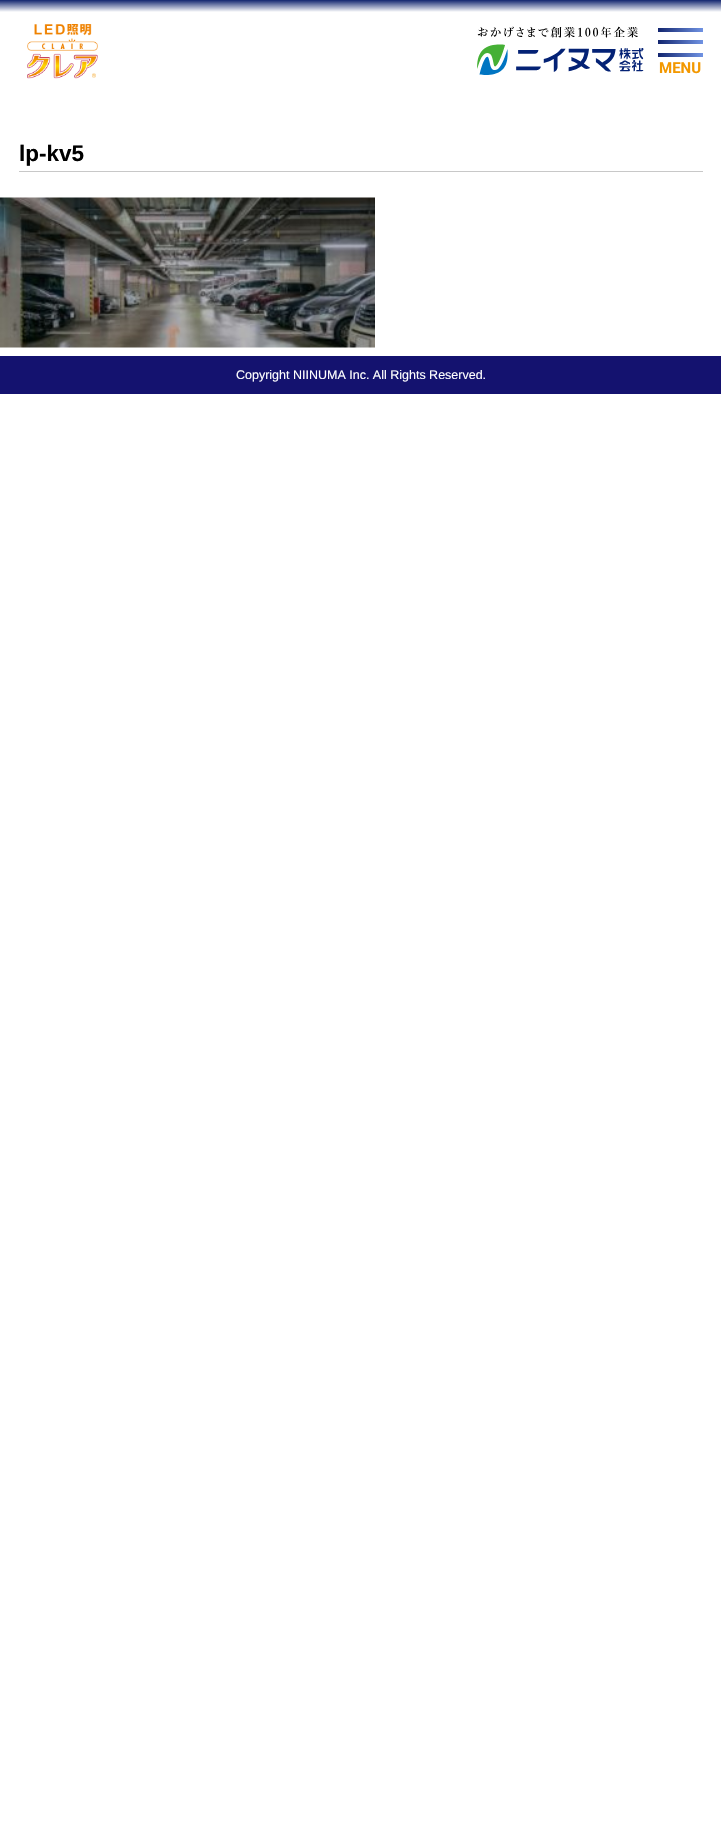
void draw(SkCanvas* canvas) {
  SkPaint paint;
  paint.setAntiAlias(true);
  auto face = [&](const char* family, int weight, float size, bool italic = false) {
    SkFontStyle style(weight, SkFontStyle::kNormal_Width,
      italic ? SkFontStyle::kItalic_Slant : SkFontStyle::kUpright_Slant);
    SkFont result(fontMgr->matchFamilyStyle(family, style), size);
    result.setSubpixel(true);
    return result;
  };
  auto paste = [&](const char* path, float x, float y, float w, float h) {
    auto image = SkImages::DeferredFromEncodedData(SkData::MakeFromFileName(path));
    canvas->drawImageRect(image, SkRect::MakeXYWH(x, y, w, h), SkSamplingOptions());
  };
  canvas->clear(0xffffffff);
  {
    const SkColor colors[] = {0xff12256f, 0xffffffff};
    const float stops[] = {0, 0.12f};
    const SkPoint ends[] = {{361, 0}, {361, 100}};
    paint.setShader(SkGradientShader::MakeLinear(ends, colors, stops, 2, SkTileMode::kClamp));
    paint.setAlpha(255);
  }
  canvas->drawRect(SkRect::MakeXYWH(0, 0, 721, 12), paint);
  paste("img/1.png", 27, 24, 71, 55);
  paste("img/2.png", 477, 26, 167, 49);
  {
    const SkColor colors[] = {0xff12256f, 0xff7093e3};
    const float stops[] = {0, 1};
    const SkPoint ends[] = {{658, 29}, {703, 29}};
    paint.setShader(SkGradientShader::MakeLinear(ends, colors, stops, 2, SkTileMode::kClamp));
    paint.setAlpha(255);
  }
  canvas->drawRect(SkRect::MakeXYWH(658, 28, 45, 4), paint);
  {
    const SkColor colors[] = {0xff12256f, 0xff7093e3};
    const float stops[] = {0, 1};
    const SkPoint ends[] = {{658, 42}, {703, 42}};
    paint.setShader(SkGradientShader::MakeLinear(ends, colors, stops, 2, SkTileMode::kClamp));
    paint.setAlpha(255);
  }
  canvas->drawRect(SkRect::MakeXYWH(658, 40, 45, 4), paint);
  {
    const SkColor colors[] = {0xff12256f, 0xff7093e3};
    const float stops[] = {0, 1};
    const SkPoint ends[] = {{658, 54}, {703, 54}};
    paint.setShader(SkGradientShader::MakeLinear(ends, colors, stops, 2, SkTileMode::kClamp));
    paint.setAlpha(255);
  }
  canvas->drawRect(SkRect::MakeXYWH(658, 53, 45, 4), paint);
  paint.setShader(nullptr);
  paint.setColor(0xffc8c8c8);
  canvas->drawRect(SkRect::MakeXYWH(19, 171, 684, 1), paint);
  paste("img/3.png", 0, 197, 375, 151);
  paint.setColor(0xff14126f);
  canvas->drawRect(SkRect::MakeXYWH(0, 356, 721, 38), paint);
  auto f0 = face("Roboto", 700, 15);
  paint.setColor(0xfff39800);
  canvas->drawString("MENU", 659, 73, f0, paint);
  auto f1 = face("Liberation Sans", 700, 22.5f);
  paint.setColor(0xff000000);
  canvas->drawString("lp-kv5", 19, 161, f1, paint);
  auto f2 = face("Liberation Sans", 400, 12.5f);
  paint.setColor(0xffffffff);
  canvas->drawString("Copyright NIINUMA Inc. All Rights Reserved.", 236, 379, f2, paint);
}
